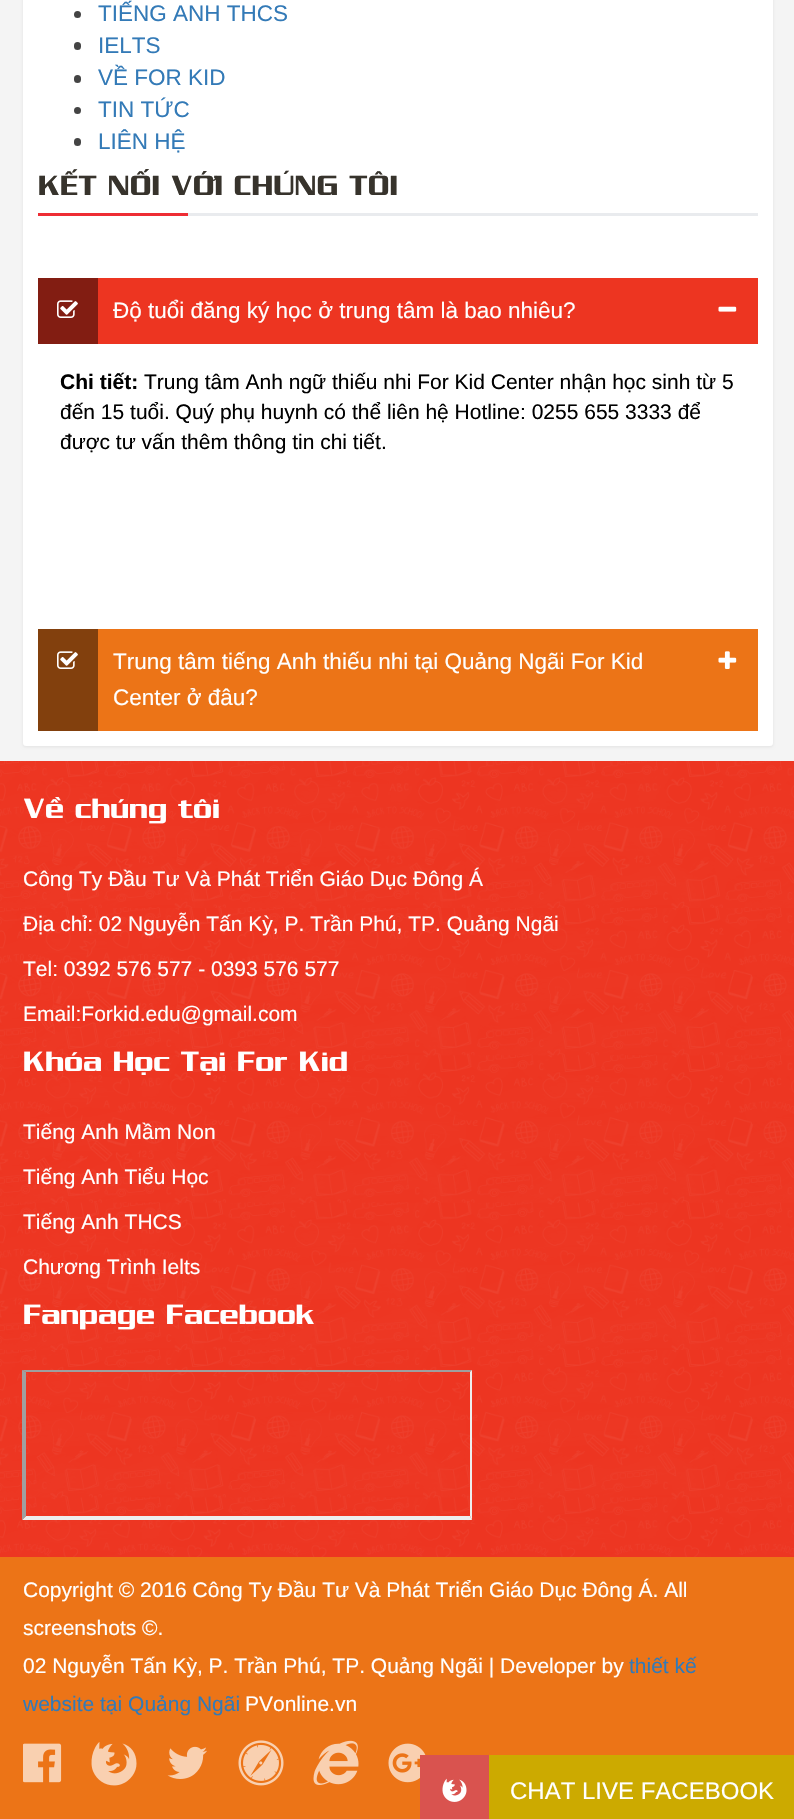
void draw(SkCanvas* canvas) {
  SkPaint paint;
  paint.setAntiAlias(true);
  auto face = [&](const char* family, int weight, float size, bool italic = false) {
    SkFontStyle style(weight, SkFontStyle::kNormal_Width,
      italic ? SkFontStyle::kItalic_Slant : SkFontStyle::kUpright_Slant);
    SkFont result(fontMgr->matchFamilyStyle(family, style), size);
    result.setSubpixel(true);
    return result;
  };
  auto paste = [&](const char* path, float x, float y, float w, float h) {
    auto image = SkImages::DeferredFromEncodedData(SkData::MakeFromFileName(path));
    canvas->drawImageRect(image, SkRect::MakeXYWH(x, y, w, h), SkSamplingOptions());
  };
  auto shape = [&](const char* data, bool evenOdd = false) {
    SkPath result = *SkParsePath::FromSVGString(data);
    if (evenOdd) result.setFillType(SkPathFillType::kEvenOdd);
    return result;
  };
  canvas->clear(0xfff4f4f4);
  paint.setColor(0x12000000);
  paint.setMaskFilter(SkMaskFilter::MakeBlur(kNormal_SkBlurStyle, 1.5f));
  canvas->drawRoundRect(SkRect::MakeXYWH(23, -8, 750, 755), 3, 3, paint);
  paint.setMaskFilter(nullptr);
  paint.setColor(0xffffffff);
  canvas->drawRoundRect(SkRect::MakeXYWH(23, -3, 750, 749), 3, 3, paint);
  paint.setColor(0xff444444);
  canvas->drawCircle(77.5f, 14.5f, 3.5f, paint);
  canvas->drawRoundRect(SkRect::MakeXYWH(74, 42, 7, 8), 3.5f, 3.5f, paint);
  canvas->drawRoundRect(SkRect::MakeXYWH(74, 75, 7, 8), 3.5f, 3.5f, paint);
  canvas->drawCircle(77.5f, 110.5f, 3.5f, paint);
  canvas->drawRoundRect(SkRect::MakeXYWH(74, 138, 7, 8), 3.5f, 3.5f, paint);
  {
    const struct { float x, y, w, h; SkColor color; } items[] = {
      {188, 213, 570, 3, 0xffe9ebee},
      {38, 213, 150, 3, 0xffee2d34},
      {98, 278, 660, 66, 0xffed3521},
      {38, 278, 60, 66, 0xff821d12},
    };
    for (auto [x, y, w, h, color] : items) {
      paint.setColor(color);
      canvas->drawRect(SkRect::MakeXYWH(x, y, w, h), paint);
    }
  }
  paste("img/1.png", 57, 300, 21, 18);
  paste("img/2.png", 718, 306, 19, 6);
  paint.setColor(0xffec7417);
  canvas->drawRect(SkRect::MakeXYWH(98, 629, 660, 102), paint);
  paint.setColor(0xff82400d);
  canvas->drawRect(SkRect::MakeXYWH(38, 629, 60, 102), paint);
  paste("img/3.png", 57, 651, 21, 18);
  paste("img/4.png", 718, 651, 19, 18);
  paint.setColor(0xffed3521);
  canvas->drawRect(SkRect::MakeXYWH(0, 761, 794, 796), paint);
  paste("img/5.png", 0, 761, 794, 796);
  paint.setColor(0xff9f9f9f);
  canvas->drawPath(shape("M22 1370H472L470 1372H26Z"), paint);
  paint.setColor(0xffeeeeee);
  canvas->drawPath(shape("M472 1370V1520L470 1516V1372Z"), paint);
  canvas->drawPath(shape("M472 1520H22L26 1516H470Z"), paint);
  paint.setColor(0xff9f9f9f);
  canvas->drawPath(shape("M22 1520V1370L26 1372V1516Z"), paint);
  paint.setColor(0xffec7417);
  canvas->drawRect(SkRect::MakeXYWH(0, 1557, 794, 262), paint);
  paste("img/6.png", 23, 1743, 39, 40);
  paste("img/7.png", 91, 1742, 46, 44);
  paste("img/8.png", 167, 1746, 40, 33);
  paste("img/9.png", 238, 1740, 46, 46);
  paste("img/10.png", 313, 1740, 46, 45);
  paste("img/11.png", 388, 1743, 38, 40);
  paint.setColor(0xffccaa00);
  canvas->drawRect(SkRect::MakeXYWH(489, 1755, 305, 64), paint);
  paint.setColor(0xffd9534f);
  canvas->drawRect(SkRect::MakeXYWH(420, 1755, 69, 64), paint);
  paste("img/12.png", 442, 1778, 25, 24);
  auto f0 = face("Liberation Sans", 400, 22.5f);
  paint.setColor(0xff337ab7);
  {
    const struct { const char* s; float x, y; } items[] = {
      {"TIẾNG ANH THCS", 98, 21},
      {"IELTS", 98, 53},
      {"VỀ FOR KID", 98, 85},
      {"TIN TỨC", 98, 117},
      {"LIÊN HỆ", 98, 149},
    };
    for (auto [s, x, y] : items) {
      canvas->drawString(s, x, y, f0, paint);
    }
  }
  auto f1 = face("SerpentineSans", 400, 30);
  paint.setColor(0xff37332c);
  canvas->drawString("KẾT NỐI VỚI CHÚNG TÔI", 38, 195, f1, paint);
  paint.setColor(0xffffffff);
  canvas->drawString("Độ tuổi đăng ký học ở trung tâm là bao nhiêu?", 113, 318, f0, paint);
  auto f2 = face("Liberation Sans", 700, 21);
  paint.setColor(0xff000000);
  canvas->drawString("Chi tiết:", 60, 389, f2, paint);
  auto f3 = face("Liberation Sans", 400, 21);
  {
    const struct { const char* s; float x, y; } items[] = {
      {"Trung tâm Anh ngữ thiếu nhi For Kid Center nhận học sinh từ 5", 144, 389},
      {"đến 15 tuổi. Quý phụ huynh có thể liên hệ Hotline: 0255 655 3333 để", 60, 419},
      {"được tư vấn thêm thông tin chi tiết.", 60, 449},
    };
    for (auto [s, x, y] : items) {
      canvas->drawString(s, x, y, f3, paint);
    }
  }
  paint.setColor(0xffffffff);
  canvas->drawString("Trung tâm tiếng Anh thiếu nhi tại Quảng Ngãi For Kid", 113, 669, f0, paint);
  canvas->drawString("Center ở đâu?", 113, 705, f0, paint);
  canvas->drawString("Về chúng tôi", 23, 818, f1, paint);
  {
    const struct { const char* s; float x, y; } items[] = {
      {"Công Ty Đầu Tư Và Phát Triển Giáo Dục Đông Á", 23, 886},
      {"Địa chỉ: 02 Nguyễn Tấn Kỳ, P. Trần Phú, TP. Quảng Ngãi", 23, 931},
      {"Tel: 0392 576 577 - 0393 576 577", 23, 976},
      {"Email:Forkid.edu@gmail.com", 23, 1021},
    };
    for (auto [s, x, y] : items) {
      canvas->drawString(s, x, y, f3, paint);
    }
  }
  canvas->drawString("Khóa Học Tại For Kid", 23, 1071, f1, paint);
  {
    const struct { const char* s; float x, y; } items[] = {
      {"Tiếng Anh Mầm Non", 23, 1139},
      {"Tiếng Anh Tiểu Học", 23, 1184},
      {"Tiếng Anh THCS", 23, 1229},
      {"Chương Trình Ielts", 23, 1274},
    };
    for (auto [s, x, y] : items) {
      canvas->drawString(s, x, y, f3, paint);
    }
  }
  canvas->drawString("Fanpage Facebook", 23, 1324, f1, paint);
  {
    const struct { const char* s; float x, y; } items[] = {
      {"Copyright © 2016 Công Ty Đầu Tư Và Phát Triển Giáo Dục Đông Á. All", 23, 1597},
      {"screenshots ©.", 23, 1635},
      {"02 Nguyễn Tấn Kỳ, P. Trần Phú, TP. Quảng Ngãi | Developer by", 23, 1673},
    };
    for (auto [s, x, y] : items) {
      canvas->drawString(s, x, y, f3, paint);
    }
  }
  paint.setColor(0xff337ab7);
  canvas->drawString("thiết kế", 629, 1673, f3, paint);
  canvas->drawString("website tại Quảng Ngãi", 23, 1711, f3, paint);
  paint.setColor(0xffffffff);
  canvas->drawString("PVonline.vn", 245, 1711, f3, paint);
  auto f4 = face("Liberation Sans", 400, 24);
  canvas->drawString("CHAT LIVE FACEBOOK", 510, 1799, f4, paint);
}
